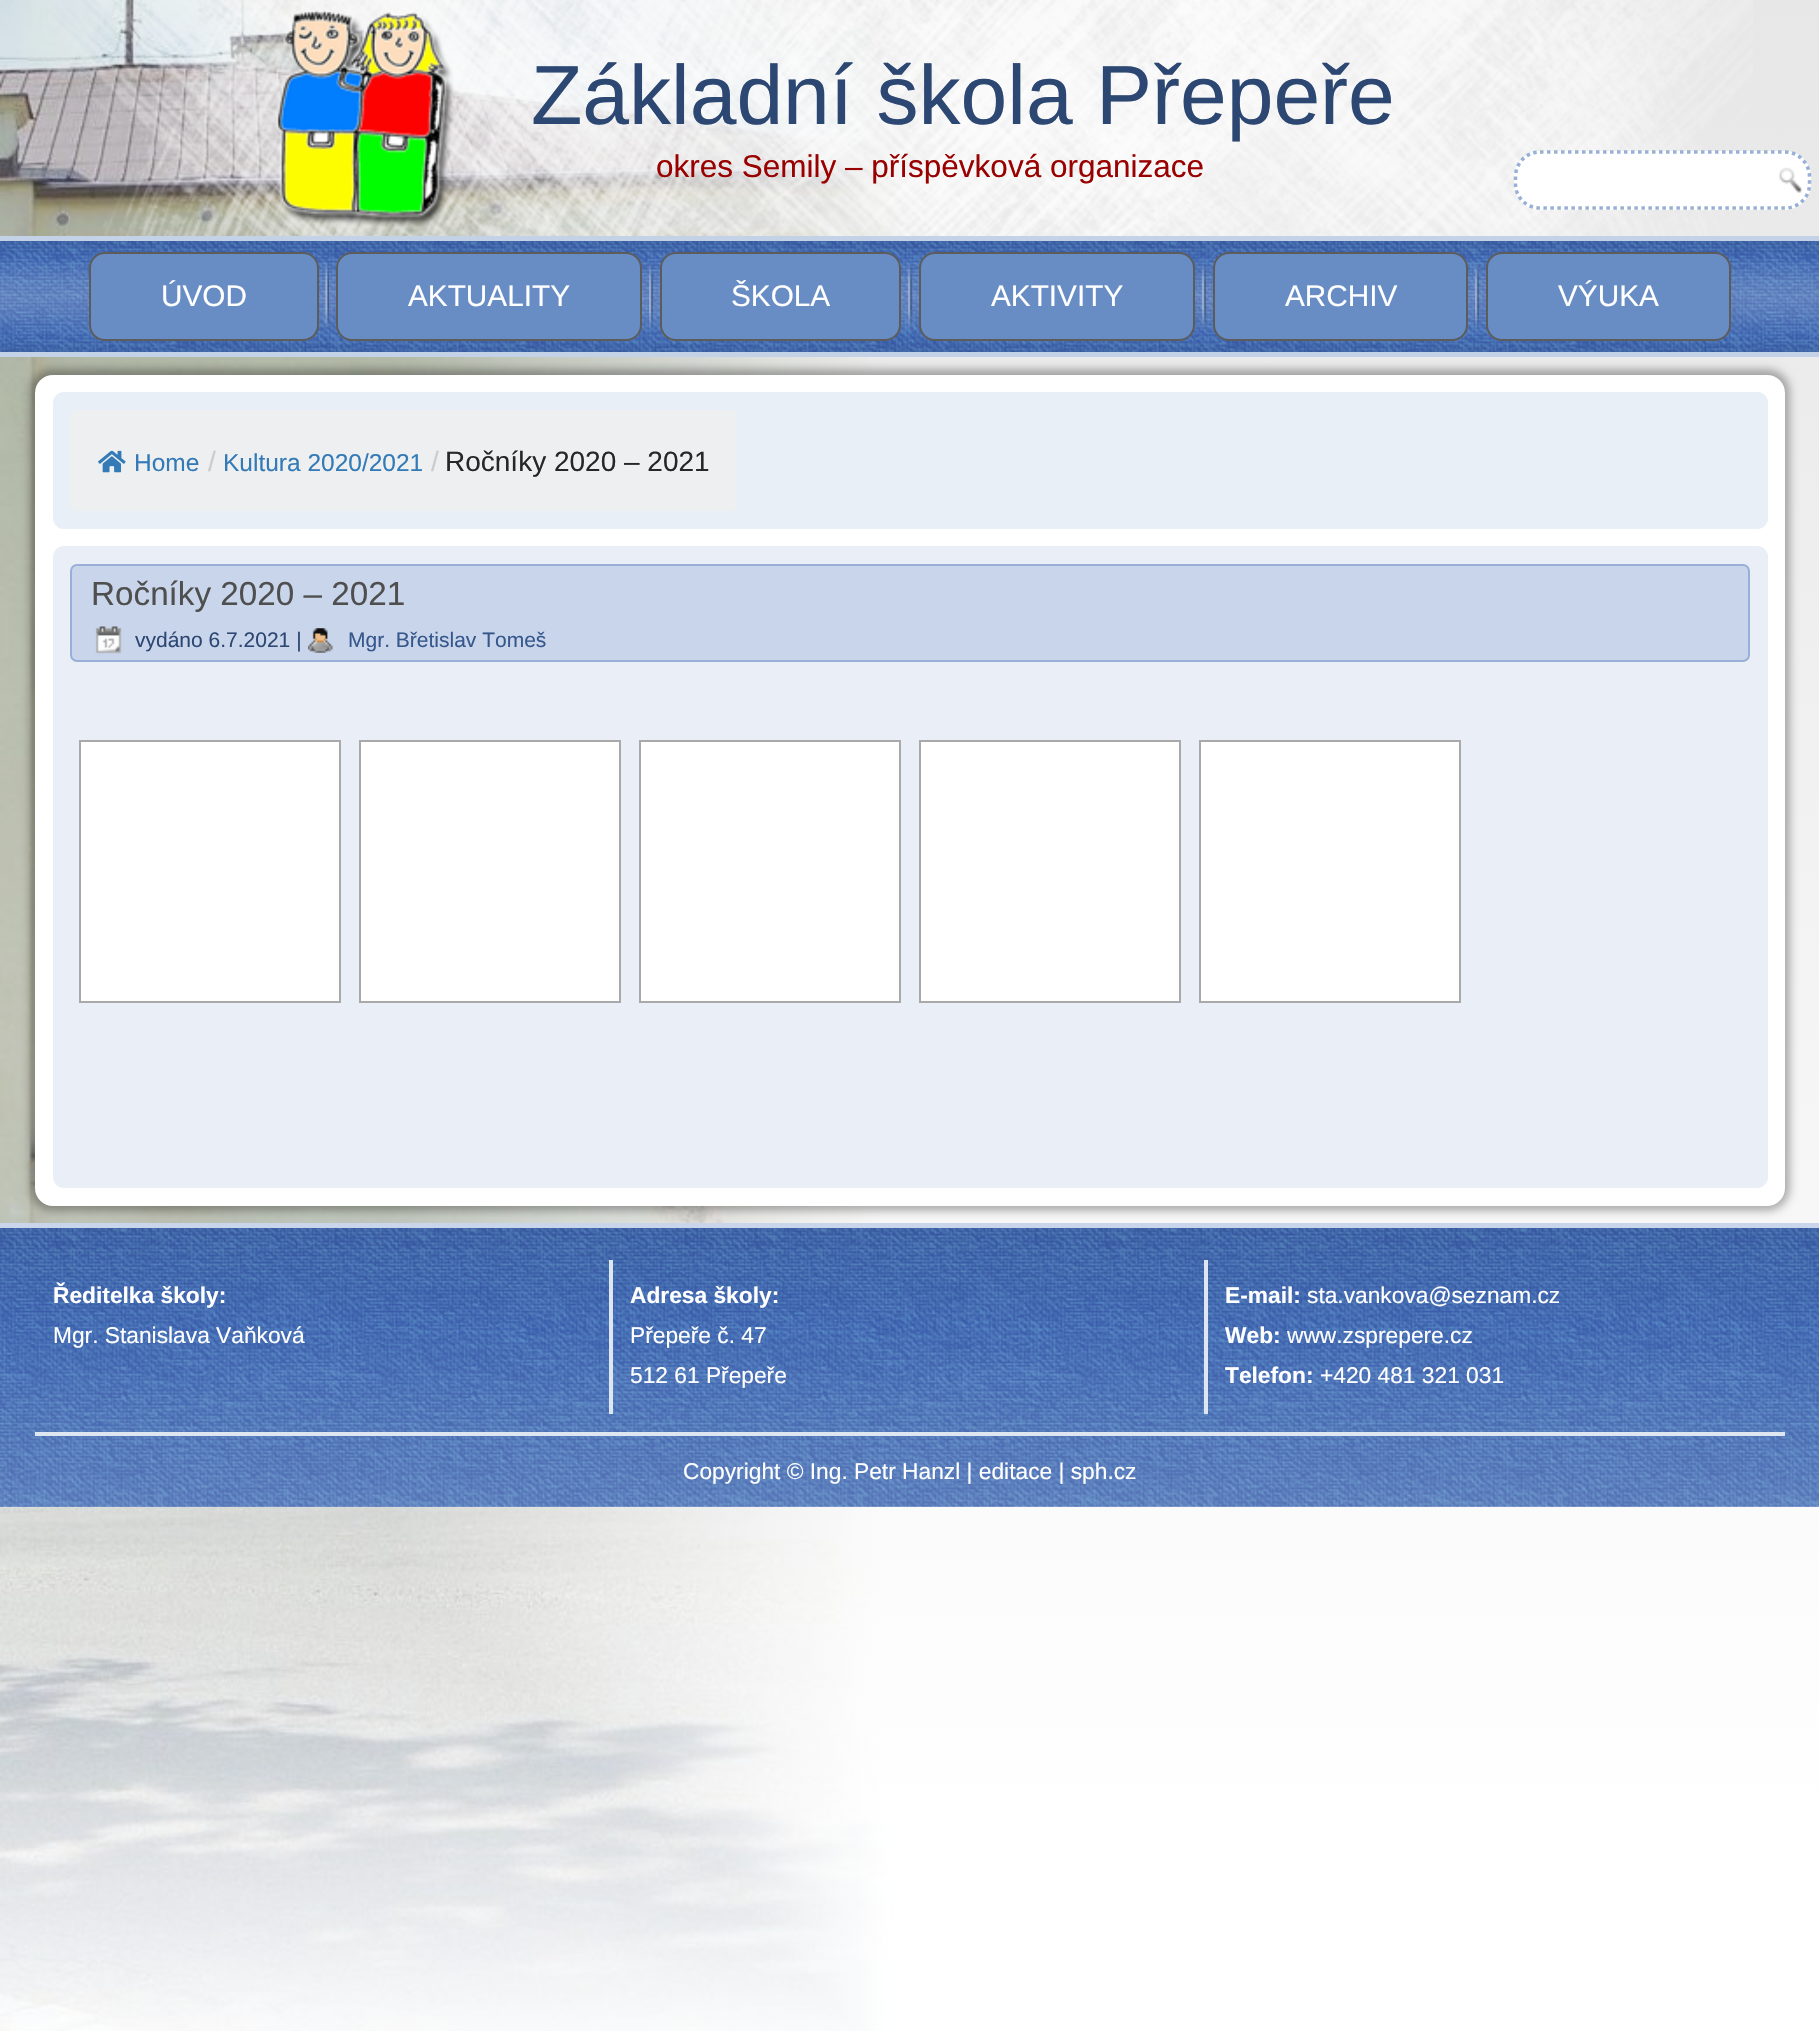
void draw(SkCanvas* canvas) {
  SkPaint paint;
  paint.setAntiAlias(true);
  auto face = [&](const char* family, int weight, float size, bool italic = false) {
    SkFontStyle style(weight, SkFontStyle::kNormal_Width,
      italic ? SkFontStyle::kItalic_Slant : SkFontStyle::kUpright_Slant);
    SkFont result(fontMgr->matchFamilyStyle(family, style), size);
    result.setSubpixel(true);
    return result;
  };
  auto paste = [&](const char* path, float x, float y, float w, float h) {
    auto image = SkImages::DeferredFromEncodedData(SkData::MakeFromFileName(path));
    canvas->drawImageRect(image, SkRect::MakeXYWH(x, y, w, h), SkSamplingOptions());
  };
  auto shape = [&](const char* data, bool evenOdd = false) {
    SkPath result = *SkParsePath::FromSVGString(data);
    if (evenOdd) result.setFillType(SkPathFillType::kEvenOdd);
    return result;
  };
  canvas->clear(0xffffffff);
  paste("img/1.png", 0, 0, 1819, 2031);
  paste("img/2.png", 48, 0, 1705, 236);
  paste("img/3.png", 275, 10, 179, 217);
  paint.setColor(0xffffffff);
  canvas->drawRoundRect(SkRect::MakeXYWH(1514, 151, 297, 59), 26, 26, paint);
  paint.setStroke(true);
  paint.setStrokeWidth(3.5f);
  paint.setColor(0xff98b0d7);
  paint.setPathEffect(SkDashPathEffect::Make({{3.5f, 3.5f}}, 0));
  canvas->drawPath(shape("M1540 152H1785C1798.5 152 1809.5 163 1809.5 177V184C1809.5 197.5 1798.5 208 1785 208H1540C1526.5 208 1515.5 197.5 1515.5 184V177C1515.5 163 1526.5 152 1540 152Z"), paint);
  paint.setPathEffect(nullptr);
  paste("img/4.png", 1778, 167, 25, 26);
  paste("img/5.png", 0, 241, 1819, 111);
  paint.setStroke(false);
  paint.setColor(0xffc4d2e8);
  canvas->drawRect(SkRect::MakeXYWH(0, 236, 1819, 5), paint);
  paint.setColor(0x4d000000);
  paint.setMaskFilter(SkMaskFilter::MakeBlur(kNormal_SkBlurStyle, 4.5f));
  canvas->drawRoundRect(SkRect::MakeXYWH(30, 369, 1760, 842), 23, 23, paint);
  paint.setMaskFilter(nullptr);
  paint.setColor(0xffc4d2e8);
  canvas->drawRect(SkRect::MakeXYWH(0, 352, 1819, 5), paint);
  paint.setColor(0xff688cc4);
  canvas->drawRoundRect(SkRect::MakeXYWH(90, 253, 228, 87), 15, 15, paint);
  paint.setStroke(true);
  paint.setStrokeWidth(2);
  paint.setColor(0xff5c5c5c);
  canvas->drawRoundRect(SkRect::MakeXYWH(90, 253, 228, 87), 15, 15, paint);
  paste("img/6.png", 325, 263, 4, 66);
  paint.setStroke(false);
  paint.setColor(0xff688cc4);
  canvas->drawRoundRect(SkRect::MakeXYWH(337, 253, 304, 87), 15, 15, paint);
  paint.setStroke(true);
  paint.setColor(0xff5c5c5c);
  canvas->drawRoundRect(SkRect::MakeXYWH(337, 253, 304, 87), 15, 15, paint);
  paste("img/7.png", 649, 263, 4, 65);
  paint.setStroke(false);
  paint.setColor(0xff688cc4);
  canvas->drawRoundRect(SkRect::MakeXYWH(661, 253, 239, 87), 15, 15, paint);
  paint.setStroke(true);
  paint.setColor(0xff5c5c5c);
  canvas->drawRoundRect(SkRect::MakeXYWH(661, 253, 239, 87), 15, 15, paint);
  paste("img/8.png", 908, 263, 4, 65);
  paint.setStroke(false);
  paint.setColor(0xff688cc4);
  canvas->drawRoundRect(SkRect::MakeXYWH(920, 253, 274, 87), 15, 15, paint);
  paint.setStroke(true);
  paint.setColor(0xff5c5c5c);
  canvas->drawRoundRect(SkRect::MakeXYWH(920, 253, 274, 87), 15, 15, paint);
  paste("img/9.png", 1202, 263, 4, 66);
  paint.setStroke(false);
  paint.setColor(0xff688cc4);
  canvas->drawRoundRect(SkRect::MakeXYWH(1214, 253, 253, 87), 15, 15, paint);
  paint.setStroke(true);
  paint.setColor(0xff5c5c5c);
  canvas->drawRoundRect(SkRect::MakeXYWH(1214, 253, 253, 87), 15, 15, paint);
  paste("img/10.png", 1475, 263, 4, 66);
  paint.setStroke(false);
  paint.setColor(0xff688cc4);
  canvas->drawRoundRect(SkRect::MakeXYWH(1487, 253, 243, 87), 15, 15, paint);
  paint.setStroke(true);
  paint.setColor(0xff5c5c5c);
  canvas->drawRoundRect(SkRect::MakeXYWH(1487, 253, 243, 87), 15, 15, paint);
  paint.setStroke(false);
  paint.setColor(0xffffffff);
  canvas->drawRoundRect(SkRect::MakeXYWH(35, 375, 1750, 831), 18, 18, paint);
  paint.setColor(0xffe9eff7);
  canvas->drawRoundRect(SkRect::MakeXYWH(53, 392, 1715, 137), 11, 11, paint);
  paint.setColor(0xffedeff0);
  canvas->drawRoundRect(SkRect::MakeXYWH(70, 410, 667, 101), 7, 7, paint);
  paste("img/11.png", 98, 450, 28, 23);
  paint.setColor(0xffeaeff7);
  canvas->drawRoundRect(SkRect::MakeXYWH(53, 546, 1715, 642), 11, 11, paint);
  paint.setColor(0xffc8d5ea);
  canvas->drawRoundRect(SkRect::MakeXYWH(71, 565, 1678, 96), 6, 6, paint);
  paint.setStroke(true);
  paint.setColor(0xff98b0d7);
  canvas->drawRoundRect(SkRect::MakeXYWH(71, 565, 1678, 96), 6, 6, paint);
  paste("img/12.png", 95, 626, 27, 28);
  paste("img/13.png", 308, 628, 25, 25);
  paint.setStroke(false);
  paint.setColor(0xffffffff);
  canvas->drawRect(SkRect::MakeXYWH(80, 741, 260, 261), paint);
  paint.setStroke(true);
  paint.setColor(0xffa9a9a9);
  canvas->drawRect(SkRect::MakeXYWH(80, 741, 260, 261), paint);
  paint.setStroke(false);
  paint.setColor(0xffffffff);
  canvas->drawRect(SkRect::MakeXYWH(360, 741, 260, 261), paint);
  paint.setStroke(true);
  paint.setColor(0xffa9a9a9);
  canvas->drawRect(SkRect::MakeXYWH(360, 741, 260, 261), paint);
  paint.setStroke(false);
  paint.setColor(0xffffffff);
  canvas->drawRect(SkRect::MakeXYWH(640, 741, 260, 261), paint);
  paint.setStroke(true);
  paint.setColor(0xffa9a9a9);
  canvas->drawRect(SkRect::MakeXYWH(640, 741, 260, 261), paint);
  paint.setStroke(false);
  paint.setColor(0xffffffff);
  canvas->drawRect(SkRect::MakeXYWH(920, 741, 260, 261), paint);
  paint.setStroke(true);
  paint.setColor(0xffa9a9a9);
  canvas->drawRect(SkRect::MakeXYWH(920, 741, 260, 261), paint);
  paint.setStroke(false);
  paint.setColor(0xffffffff);
  canvas->drawRect(SkRect::MakeXYWH(1200, 741, 260, 261), paint);
  paint.setStroke(true);
  paint.setColor(0xffa9a9a9);
  canvas->drawRect(SkRect::MakeXYWH(1200, 741, 260, 261), paint);
  paste("img/14.png", 0, 1228, 1819, 279);
  paint.setStroke(false);
  {
    const struct { float x, y, w, h; SkColor color; } items[] = {
      {0, 1223, 1819, 5, 0xffc8d5ea},
      {609, 1260, 4, 154, 0xffdee6f2},
      {1204, 1260, 4, 154, 0xffdee6f2},
      {35, 1432, 1750, 4, 0xffdee6f2},
    };
    for (auto [x, y, w, h, color] : items) {
      paint.setColor(color);
      canvas->drawRect(SkRect::MakeXYWH(x, y, w, h), paint);
    }
  }
  auto f0 = face("Liberation Sans", 400, 84);
  paint.setColor(0xff2c4772);
  canvas->drawString("Základní škola Přepeře", 531, 124, f0, paint);
  auto f1 = face("Liberation Sans", 400, 31.5f);
  paint.setColor(0xff990000);
  canvas->drawString("okres Semily – příspěvková organizace", 656, 177, f1, paint);
  auto f2 = face("Liberation Sans", 400, 29.75f);
  paint.setColor(0xffffffff);
  {
    const struct { const char* s; float x, y; } items[] = {
      {"ÚVOD", 161, 306},
      {"AKTUALITY", 408, 306},
      {"ŠKOLA", 731, 306},
      {"AKTIVITY", 991, 306},
      {"ARCHIV", 1285, 306},
      {"VÝUKA", 1558, 306},
    };
    for (auto [s, x, y] : items) {
      canvas->drawString(s, x, y, f2, paint);
    }
  }
  auto f3 = face("Liberation Sans", 400, 24.5f);
  paint.setColor(0xff337ab7);
  canvas->drawString("Home", 134, 471, f3, paint);
  auto f4 = face("Liberation Sans", 400, 28);
  paint.setColor(0xffcccccc);
  canvas->drawString("/", 208, 471, f4, paint);
  paint.setColor(0xff337ab7);
  canvas->drawString("Kultura 2020/2021", 223, 471, f3, paint);
  paint.setColor(0xffcccccc);
  canvas->drawString("/", 431, 471, f4, paint);
  paint.setColor(0xff27272a);
  canvas->drawString("Ročníky 2020 – 2021", 445, 471, f4, paint);
  auto f5 = face("Liberation Sans", 400, 33.25f);
  paint.setColor(0xff4f4f4f);
  canvas->drawString("Ročníky 2020 – 2021", 91, 605, f5, paint);
  auto f6 = face("Liberation Sans", 400, 21);
  paint.setColor(0xff2c4772);
  canvas->drawString("vydáno 6.7.2021 |", 135, 647, f6, paint);
  paint.setColor(0xff36578c);
  canvas->drawString("Mgr. Břetislav Tomeš", 348, 647, f6, paint);
  auto f7 = face("Liberation Sans", 700, 22.75f);
  paint.setColor(0xffffffff);
  canvas->drawString("Ředitelka školy:", 53, 1303, f7, paint);
  auto f8 = face("Liberation Sans", 400, 22.75f);
  canvas->drawString("Mgr. Stanislava Vaňková", 53, 1343, f8, paint);
  canvas->drawString("Adresa školy:", 630, 1303, f7, paint);
  canvas->drawString("Přepeře č. 47", 630, 1343, f8, paint);
  canvas->drawString("512 61 Přepeře", 630, 1383, f8, paint);
  canvas->drawString("E-mail:", 1225, 1303, f7, paint);
  canvas->drawString("sta.vankova@seznam.cz", 1307, 1303, f8, paint);
  canvas->drawString("Web:", 1225, 1343, f7, paint);
  canvas->drawString("www.zsprepere.cz", 1287, 1343, f8, paint);
  canvas->drawString("Telefon:", 1225, 1383, f7, paint);
  canvas->drawString("+420 481 321 031", 1320, 1383, f8, paint);
  canvas->drawString("Copyright © Ing. Petr Hanzl | editace | sph.cz", 683, 1479, f8, paint);
}
